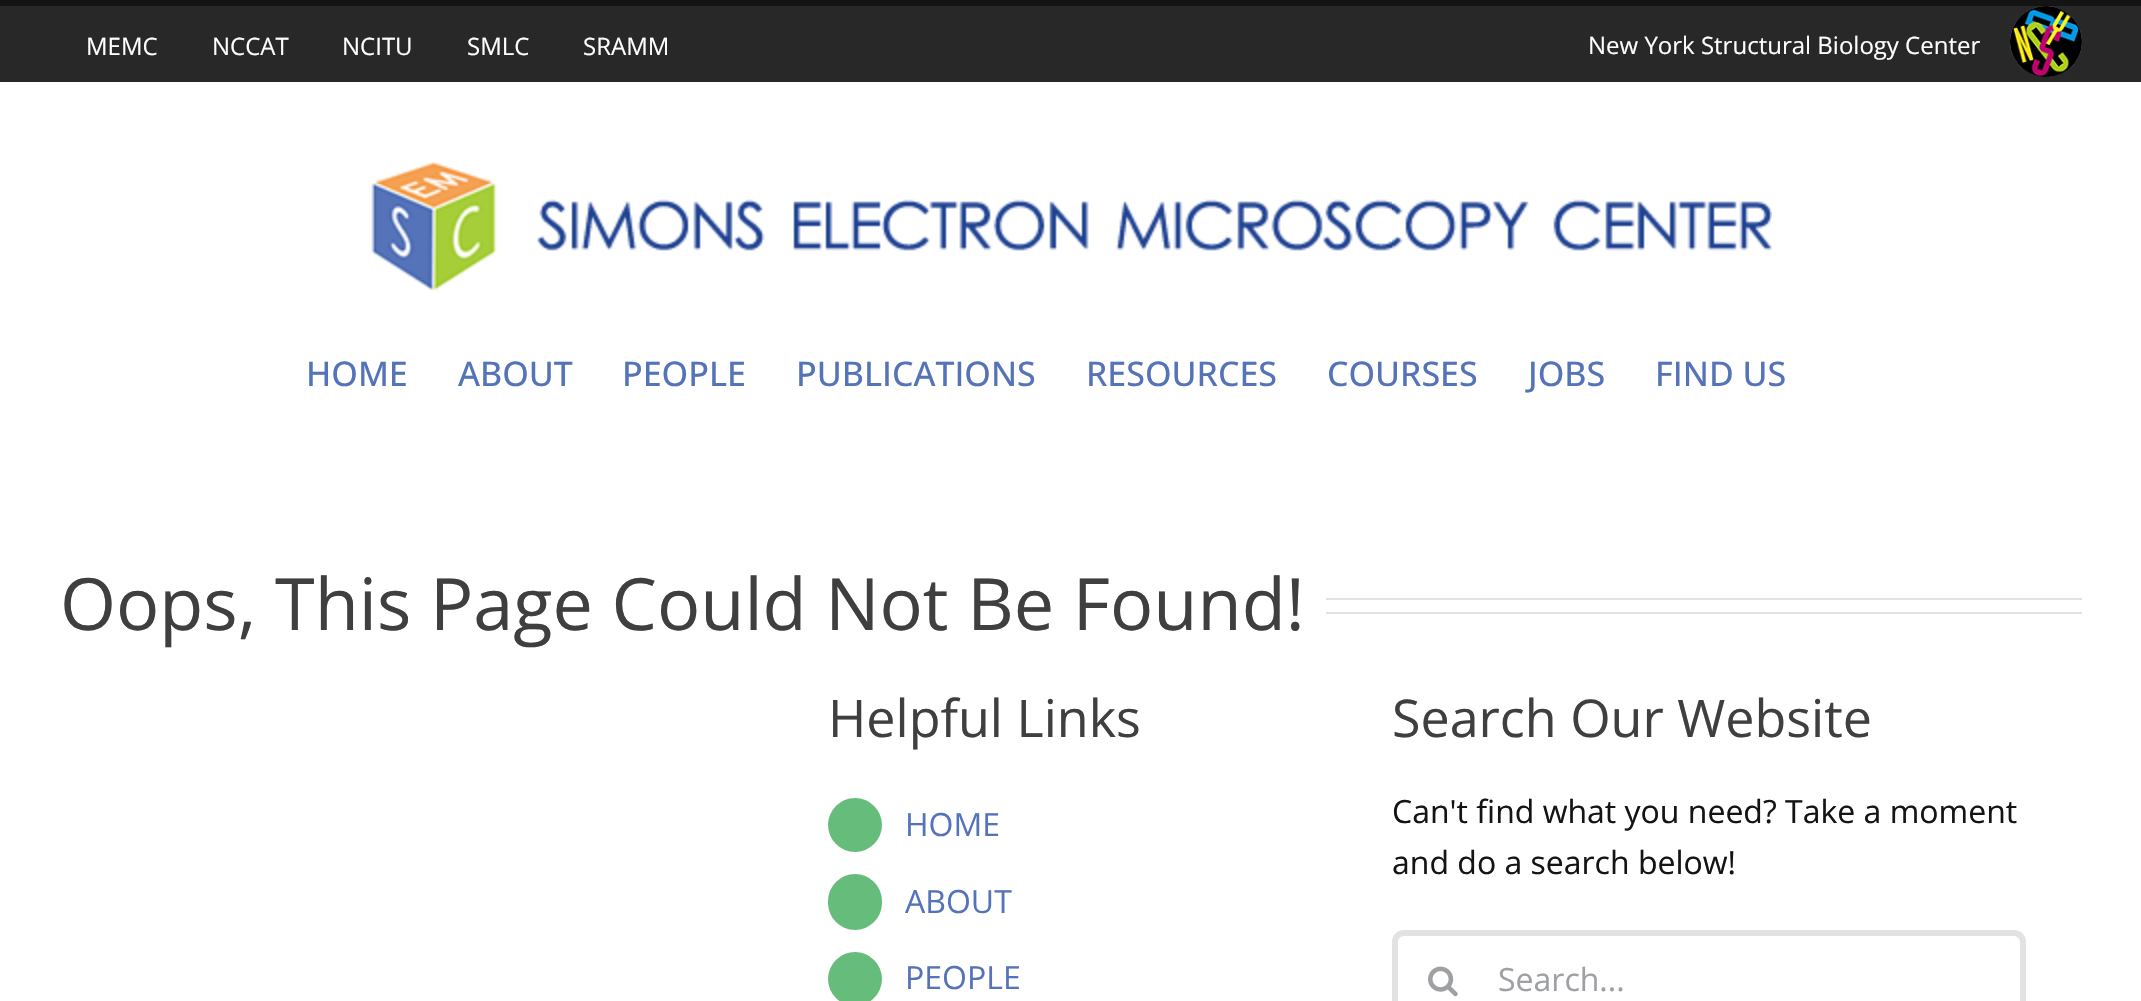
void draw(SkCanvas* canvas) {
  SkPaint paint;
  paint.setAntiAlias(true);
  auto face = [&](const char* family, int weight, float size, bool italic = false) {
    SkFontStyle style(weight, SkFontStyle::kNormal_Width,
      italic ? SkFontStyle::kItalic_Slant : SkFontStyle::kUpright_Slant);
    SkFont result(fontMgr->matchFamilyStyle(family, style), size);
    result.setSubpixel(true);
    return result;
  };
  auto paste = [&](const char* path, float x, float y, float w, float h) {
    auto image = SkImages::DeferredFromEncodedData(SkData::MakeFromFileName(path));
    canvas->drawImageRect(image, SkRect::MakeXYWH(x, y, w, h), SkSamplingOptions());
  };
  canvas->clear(0xff141414);
  paint.setColor(0xffffffff);
  canvas->drawRect(SkRect::MakeXYWH(0, 82, 2141, 919), paint);
  paint.setColor(0xff282828);
  canvas->drawRect(SkRect::MakeXYWH(0, 6, 2141, 76), paint);
  paste("img/1.png", 2010, 6, 72, 72);
  paste("img/2.png", 371, 162, 1401, 128);
  paint.setColor(0xffe2e2e2);
  canvas->drawRect(SkRect::MakeXYWH(1326, 598, 756, 2), paint);
  canvas->drawRect(SkRect::MakeXYWH(1326, 612, 756, 2), paint);
  paint.setColor(0xff65bc7b);
  canvas->drawCircle(855, 825, 27, paint);
  canvas->drawRoundRect(SkRect::MakeXYWH(828, 874, 54, 56), 27, 27, paint);
  canvas->drawCircle(855, 979, 27, paint);
  paint.setStroke(true);
  paint.setStrokeWidth(6);
  paint.setColor(0xffe2e2e2);
  canvas->drawRoundRect(SkRect::MakeXYWH(1395, 933, 628, 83), 9, 9, paint);
  paste("img/3.png", 1428, 966, 30, 31);
  auto f0 = face("Open Sans", 400, 24);
  paint.setStroke(false);
  paint.setColor(0xffffffff);
  {
    const struct { const char* s; float x, y; } items[] = {
      {"MEMC", 86, 55},
      {"NCCAT", 212, 55},
      {"NCITU", 342, 55},
      {"SMLC", 467, 55},
      {"SRAMM", 583, 55},
      {"New York Structural Biology Center", 1588, 54},
    };
    for (auto [s, x, y] : items) {
      canvas->drawString(s, x, y, f0, paint);
    }
  }
  auto f1 = face("Open Sans", 500, 34);
  paint.setColor(0xff5573b8);
  {
    const struct { const char* s; float x, y; } items[] = {
      {"HOME", 306, 386},
      {"ABOUT", 458, 386},
      {"PEOPLE", 622, 386},
      {"PUBLICATIONS", 796, 386},
      {"RESOURCES", 1086, 386},
      {"COURSES", 1327, 386},
      {"JOBS", 1528, 386},
      {"FIND US", 1655, 386},
    };
    for (auto [s, x, y] : items) {
      canvas->drawString(s, x, y, f1, paint);
    }
  }
  auto f2 = face("Open Sans", 400, 72);
  paint.setColor(0xff3f3f3f);
  canvas->drawString("Oops, This Page Could Not Be Found!", 60, 630, f2, paint);
  auto f3 = face("Open Sans", 400, 52);
  canvas->drawString("Helpful Links", 828, 737, f3, paint);
  auto f4 = face("Open Sans", 400, 32);
  paint.setColor(0xff5573b8);
  {
    const struct { const char* s; float x, y; } items[] = {
      {"HOME", 905, 836},
      {"ABOUT", 905, 913},
      {"PEOPLE", 905, 989},
    };
    for (auto [s, x, y] : items) {
      canvas->drawString(s, x, y, f4, paint);
    }
  }
  paint.setColor(0xff3f3f3f);
  canvas->drawString("Search Our Website", 1392, 737, f3, paint);
  paint.setColor(0xff141414);
  canvas->drawString("Can't find what you need? Take a moment", 1392, 823, f4, paint);
  canvas->drawString("and do a search below!", 1392, 874, f4, paint);
  paint.setColor(0xff9ea0a4);
  canvas->drawString("Search...", 1498, 991, f4, paint);
}
